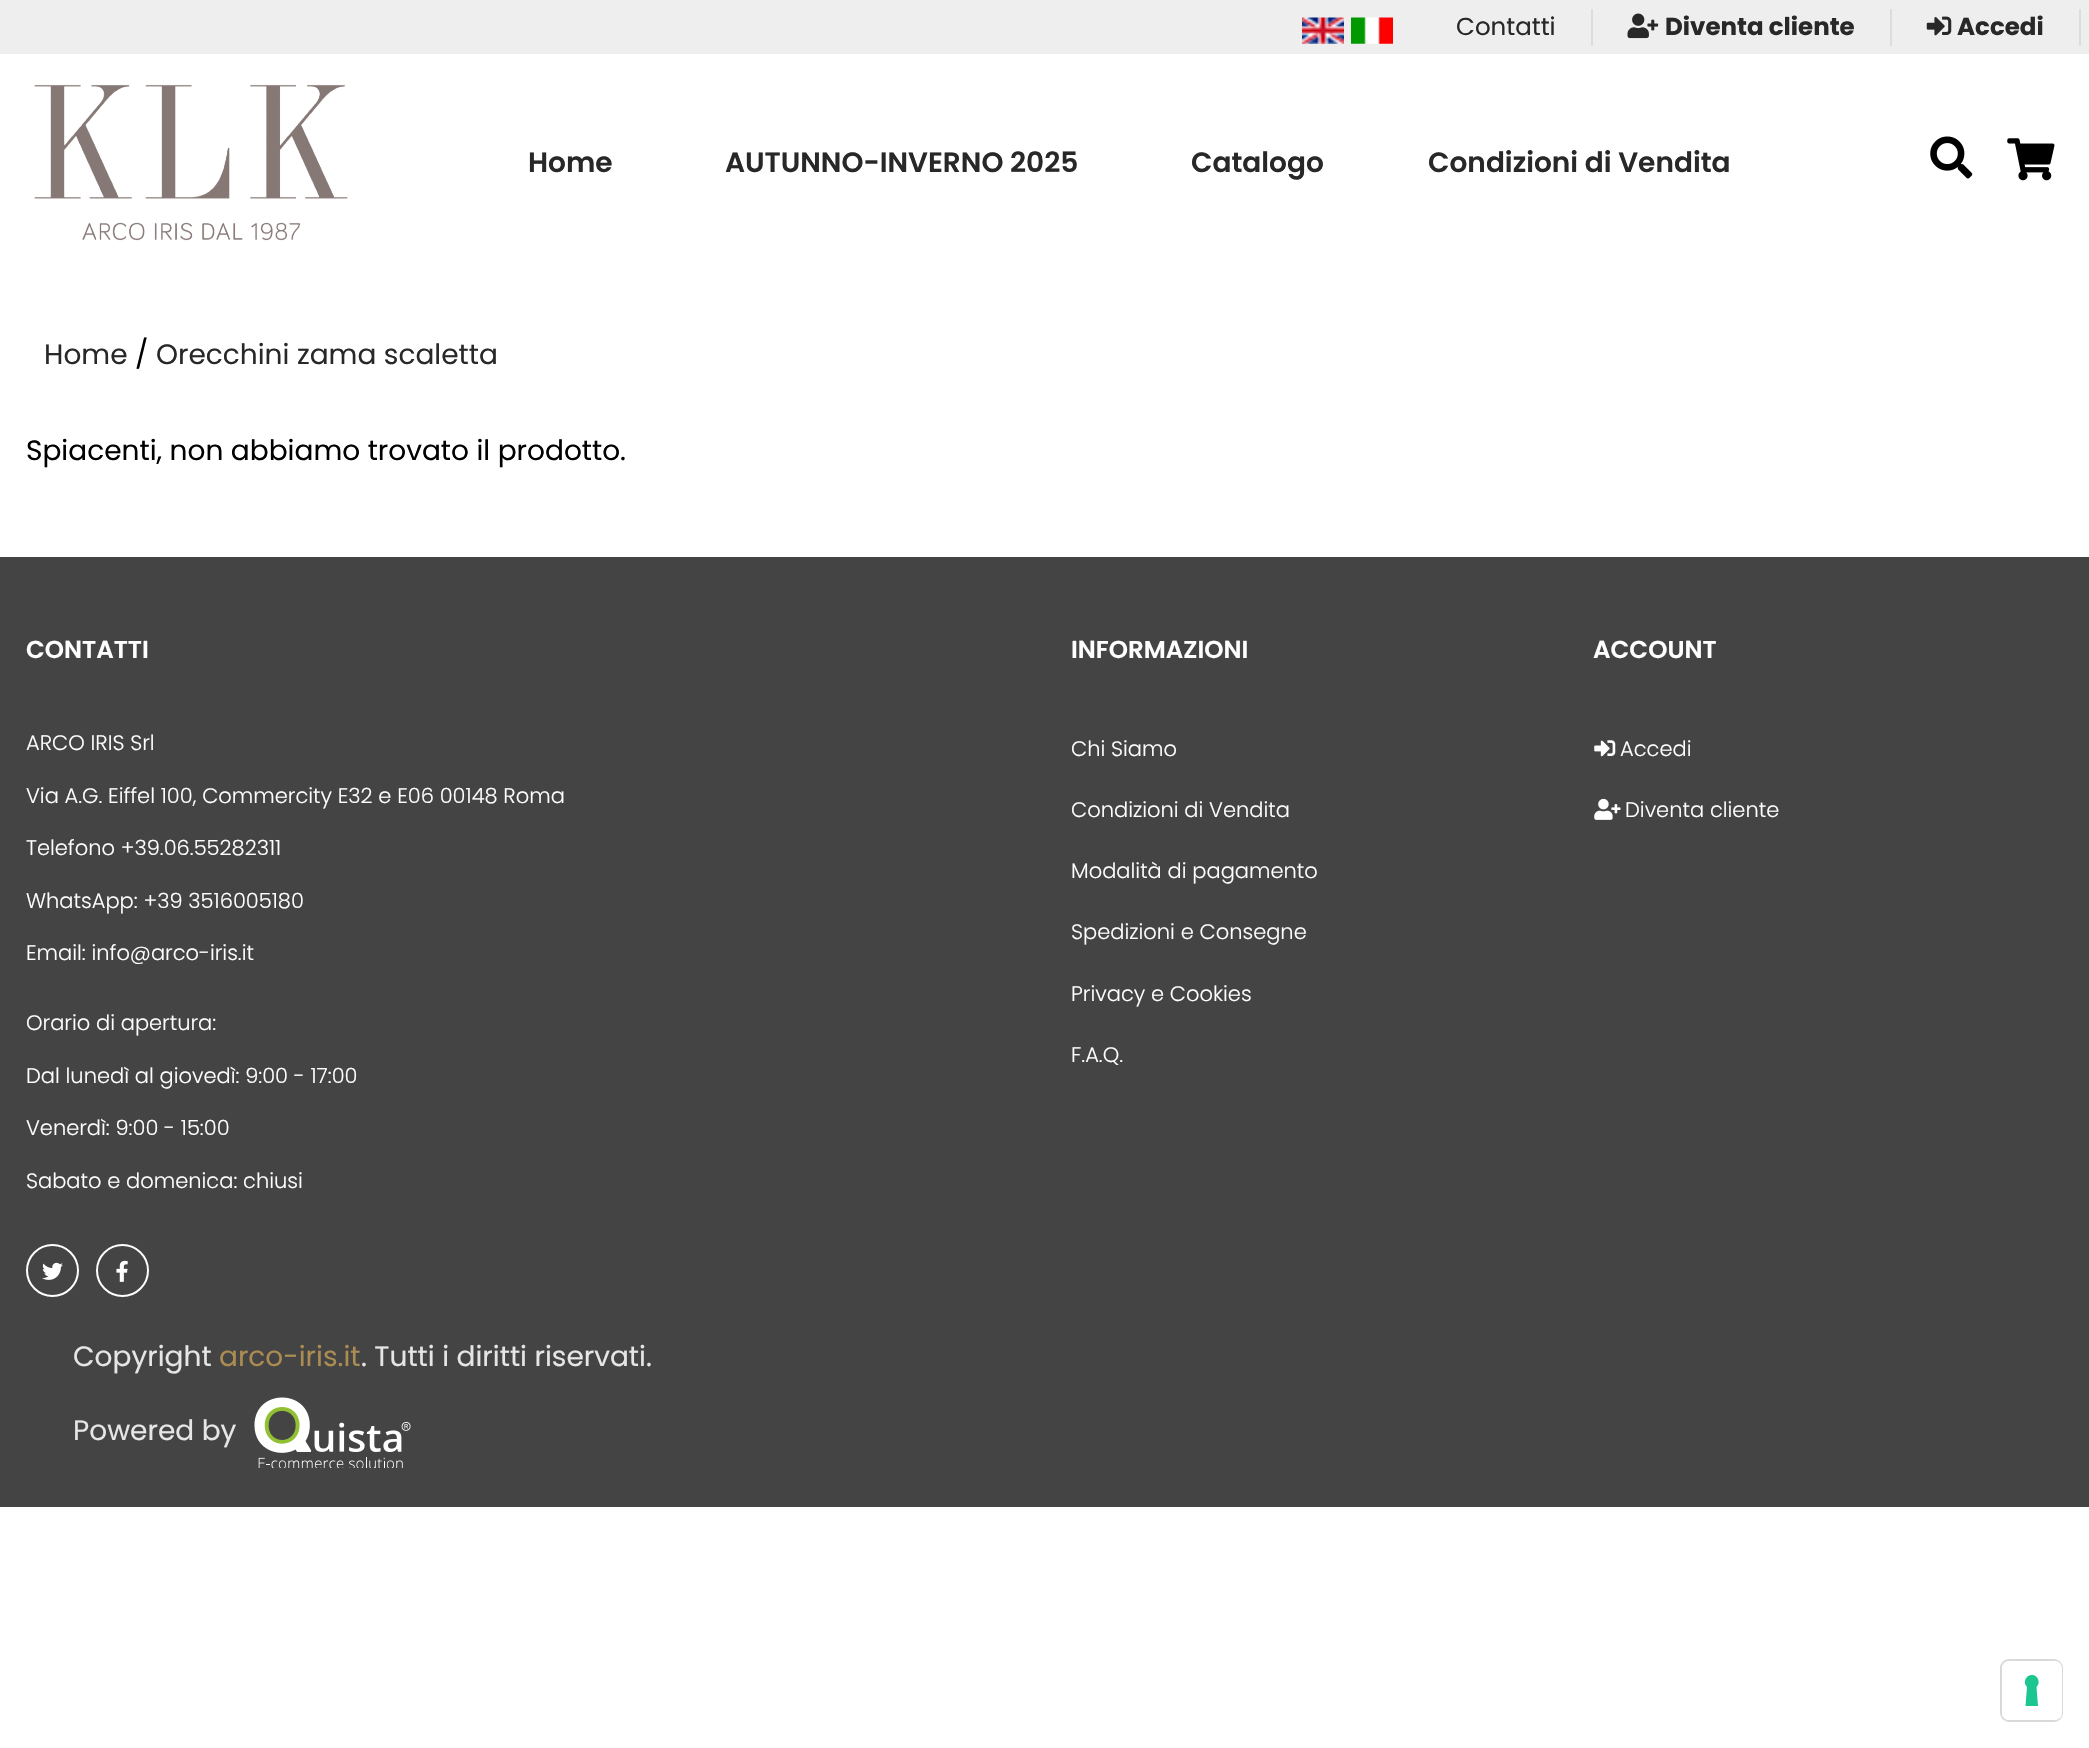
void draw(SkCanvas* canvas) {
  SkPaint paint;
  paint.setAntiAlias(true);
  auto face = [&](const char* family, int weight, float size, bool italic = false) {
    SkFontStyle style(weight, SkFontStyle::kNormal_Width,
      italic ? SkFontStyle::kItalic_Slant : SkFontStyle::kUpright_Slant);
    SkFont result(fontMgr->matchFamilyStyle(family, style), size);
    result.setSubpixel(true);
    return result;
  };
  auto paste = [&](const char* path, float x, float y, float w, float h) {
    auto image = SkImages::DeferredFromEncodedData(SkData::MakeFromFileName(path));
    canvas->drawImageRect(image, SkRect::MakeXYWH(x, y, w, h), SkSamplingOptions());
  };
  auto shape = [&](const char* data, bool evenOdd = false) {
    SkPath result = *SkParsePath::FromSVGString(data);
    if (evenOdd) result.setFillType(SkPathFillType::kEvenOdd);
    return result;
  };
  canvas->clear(0xffffffff);
  paint.setColor(0xffeeeeee);
  canvas->drawRect(SkRect::MakeXYWH(0, 0, 2089, 54), paint);
  paste("img/1.png", 1302, 17, 42, 27);
  paste("img/2.png", 1351, 17, 42, 27);
  paint.setColor(0xffdddddd);
  canvas->drawRect(SkRect::MakeXYWH(1591, 9, 2, 37), paint);
  canvas->drawRect(SkRect::MakeXYWH(1890, 9, 2, 37), paint);
  paste("img/3.png", 1627, 13, 32, 26);
  canvas->drawRect(SkRect::MakeXYWH(2079, 9, 2, 37), paint);
  paste("img/4.png", 1926, 16, 26, 20);
  paste("img/5.png", 34, 84, 314, 157);
  paste("img/6.png", 1930, 136, 43, 43);
  paste("img/7.png", 2007, 138, 48, 43);
  paint.setColor(0xff444444);
  canvas->drawRect(SkRect::MakeXYWH(0, 557, 2089, 950), paint);
  paint.setStroke(true);
  paint.setStrokeWidth(2);
  paint.setColor(0xffffffff);
  canvas->drawCircle(52.5f, 1270.5f, 25.5f, paint);
  paste("img/8.png", 42, 1262, 21, 18);
  canvas->drawCircle(122.5f, 1270.5f, 25.5f, paint);
  paste("img/9.png", 116, 1260, 12, 22);
  paste("img/10.png", 1594, 740, 22, 17);
  paste("img/11.png", 1594, 798, 27, 22);
  paste("img/12.png", 254, 1397, 157, 71);
  paint.setColor(0xffd9d9d9);
  canvas->drawRoundRect(SkRect::MakeXYWH(2001, 1660, 61, 61), 8, 8, paint);
  paint.setStroke(false);
  paint.setColor(0xffffffff);
  canvas->drawRoundRect(SkRect::MakeXYWH(2002, 1661, 60, 59), 7, 7, paint);
  paint.setColor(0xff1cc691);
  canvas->drawPath(shape("M2032 1675C2038 1675 2041 1683 2036.5 1687L2038 1706H2025.5L2027 1687C2022.5 1683 2025.5 1675 2032 1675Z", true), paint);
  auto f0 = face("Poppins", 400, 24.5f);
  paint.setColor(0xff282828);
  canvas->drawString("Contatti", 1456, 35, f0, paint);
  auto f1 = face("Poppins", 700, 24.5f);
  canvas->drawString("Diventa cliente", 1665, 35, f1, paint);
  canvas->drawString("Accedi", 1957, 35, f1, paint);
  auto f2 = face("Poppins", 600, 28);
  {
    const struct { const char* s; float x, y; } items[] = {
      {"Home", 528, 172},
      {"AUTUNNO-INVERNO 2025", 725, 172},
      {"Catalogo", 1191, 172},
      {"Condizioni di Vendita", 1428, 172},
    };
    for (auto [s, x, y] : items) {
      canvas->drawString(s, x, y, f2, paint);
    }
  }
  auto f3 = face("Poppins", 400, 28);
  canvas->drawString("Home", 44, 364, f3, paint);
  paint.setColor(0xff000000);
  canvas->drawString("/", 135, 364, f3, paint);
  paint.setColor(0xff282828);
  canvas->drawString("Orecchini zama scaletta", 156, 364, f3, paint);
  paint.setColor(0xff000000);
  canvas->drawString("Spiacenti, non abbiamo trovato il prodotto.", 26, 460, f3, paint);
  auto f4 = face("Poppins", 600, 24.5f);
  paint.setColor(0xffffffff);
  canvas->drawString("CONTATTI", 26, 658, f4, paint);
  auto f5 = face("Poppins", 300, 21);
  {
    const struct { const char* s; float x, y; } items[] = {
      {"ARCO IRIS Srl", 26, 750},
      {"Via A.G. Eiffel 100, Commercity E32 e E06 00148 Roma", 26, 803},
      {"Telefono +39.06.55282311", 26, 855},
      {"WhatsApp: +39 3516005180", 26, 908},
      {"Email: info@arco-iris.it", 26, 960},
      {"Orario di apertura:", 26, 1030},
      {"Dal lunedì al giovedì: 9:00 - 17:00", 26, 1083},
      {"Venerdì: 9:00 - 15:00", 26, 1135},
      {"Sabato e domenica: chiusi", 26, 1188},
    };
    for (auto [s, x, y] : items) {
      canvas->drawString(s, x, y, f5, paint);
    }
  }
  canvas->drawString("INFORMAZIONI", 1071, 658, f4, paint);
  {
    const struct { const char* s; float x, y; } items[] = {
      {"Chi Siamo", 1071, 756},
      {"Condizioni di Vendita", 1071, 817},
      {"Modalità di pagamento", 1071, 878},
      {"Spedizioni e Consegne", 1071, 939},
      {"Privacy e Cookies", 1071, 1001},
      {"F.A.Q.", 1071, 1062},
    };
    for (auto [s, x, y] : items) {
      canvas->drawString(s, x, y, f5, paint);
    }
  }
  canvas->drawString("ACCOUNT", 1593, 658, f4, paint);
  canvas->drawString("Accedi", 1620, 756, f5, paint);
  canvas->drawString("Diventa cliente", 1625, 817, f5, paint);
  paint.setColor(0xffe6e6e6);
  canvas->drawString("Copyright", 73, 1366, f3, paint);
  paint.setColor(0xffab8c52);
  canvas->drawString("arco-iris.it", 219, 1366, f3, paint);
  paint.setColor(0xffe6e6e6);
  canvas->drawString(". Tutti i diritti riservati.", 361, 1366, f3, paint);
  canvas->drawString("Powered by", 73, 1440, f3, paint);
}
